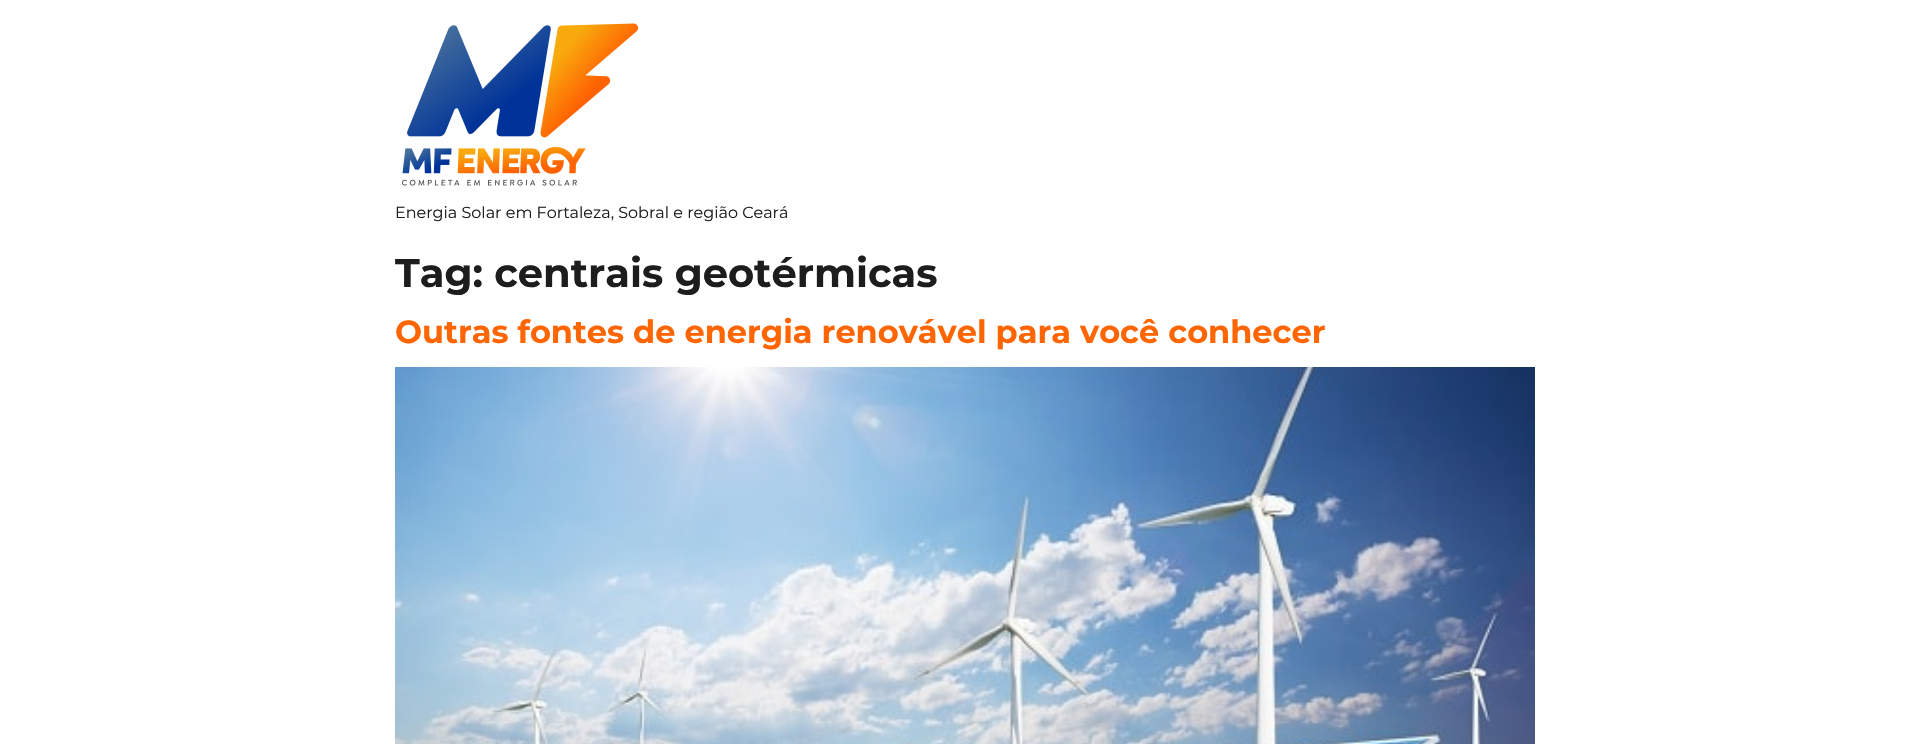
void draw(SkCanvas* canvas) {
  SkPaint paint;
  paint.setAntiAlias(true);
  auto face = [&](const char* family, int weight, float size, bool italic = false) {
    SkFontStyle style(weight, SkFontStyle::kNormal_Width,
      italic ? SkFontStyle::kItalic_Slant : SkFontStyle::kUpright_Slant);
    SkFont result(fontMgr->matchFamilyStyle(family, style), size);
    result.setSubpixel(true);
    return result;
  };
  auto paste = [&](const char* path, float x, float y, float w, float h) {
    auto image = SkImages::DeferredFromEncodedData(SkData::MakeFromFileName(path));
    canvas->drawImageRect(image, SkRect::MakeXYWH(x, y, w, h), SkSamplingOptions());
  };
  canvas->clear(0xffffffff);
  paste("img/1.png", 402, 23, 236, 163);
  paste("img/2.png", 395, 367, 1140, 377);
  auto f0 = face("Montserrat", 400, 16);
  paint.setColor(0xff1d1d1d);
  canvas->drawString("Energia Solar em Fortaleza, Sobral e região Ceará", 395, 218, f0, paint);
  auto f1 = face("Montserrat", 700, 40);
  canvas->drawString("Tag: centrais geotérmicas", 395, 287, f1, paint);
  auto f2 = face("Montserrat", 700, 32);
  paint.setColor(0xffff6501);
  canvas->drawString("Outras fontes de energia renovável para você conhecer", 395, 343, f2, paint);
}
